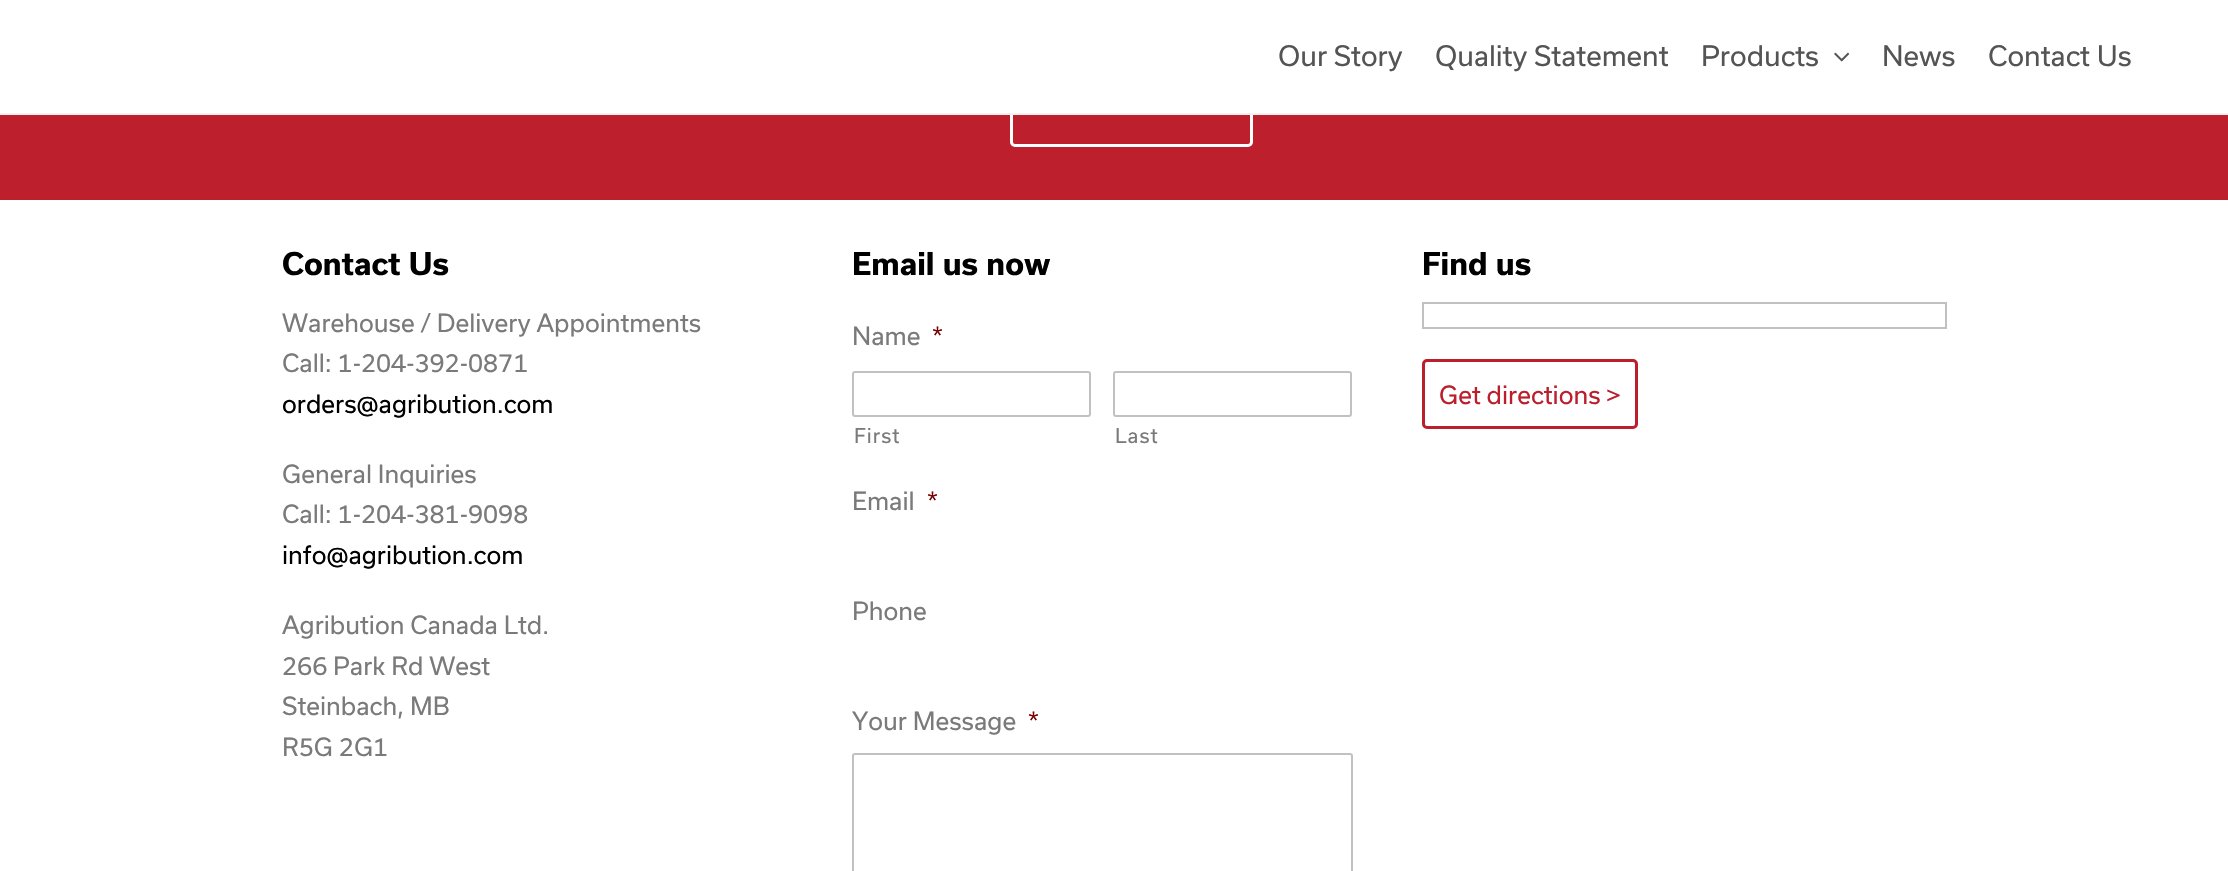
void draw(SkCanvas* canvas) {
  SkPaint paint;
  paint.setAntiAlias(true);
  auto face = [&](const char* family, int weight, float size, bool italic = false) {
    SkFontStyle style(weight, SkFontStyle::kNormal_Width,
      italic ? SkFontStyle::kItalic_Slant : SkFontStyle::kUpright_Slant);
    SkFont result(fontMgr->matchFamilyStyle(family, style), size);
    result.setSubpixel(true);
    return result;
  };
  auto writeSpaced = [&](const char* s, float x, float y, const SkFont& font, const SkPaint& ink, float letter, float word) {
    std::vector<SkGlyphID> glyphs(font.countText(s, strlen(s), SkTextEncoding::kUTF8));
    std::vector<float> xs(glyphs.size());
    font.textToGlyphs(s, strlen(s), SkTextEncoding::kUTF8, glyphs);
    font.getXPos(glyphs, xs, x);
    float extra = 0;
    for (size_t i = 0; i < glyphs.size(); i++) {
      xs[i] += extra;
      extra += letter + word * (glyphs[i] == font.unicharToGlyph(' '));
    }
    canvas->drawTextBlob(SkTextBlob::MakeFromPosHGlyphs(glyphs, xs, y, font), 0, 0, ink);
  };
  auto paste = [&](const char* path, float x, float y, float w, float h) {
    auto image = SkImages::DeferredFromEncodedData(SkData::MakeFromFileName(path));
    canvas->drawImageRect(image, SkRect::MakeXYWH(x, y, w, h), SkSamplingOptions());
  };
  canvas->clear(0xffffffff);
  paint.setColor(0xffbd1f2d);
  canvas->drawRect(SkRect::MakeXYWH(0, 115, 2228, 85), paint);
  paint.setStroke(true);
  paint.setStrokeWidth(3);
  paint.setColor(0xffffffff);
  canvas->drawRoundRect(SkRect::MakeXYWH(1011.5f, 70.5f, 240, 75), 3.5f, 3.5f, paint);
  paint.setStroke(false);
  paint.setColor(0xfff1f1f1);
  canvas->drawRect(SkRect::MakeXYWH(0, 113, 2228, 2), paint);
  paste("img/1.png", 1834, 52, 16, 10);
  paint.setStroke(true);
  paint.setStrokeWidth(2);
  paint.setColor(0xffc1c1c1);
  canvas->drawRoundRect(SkRect::MakeXYWH(853, 372, 237, 44), 2, 2, paint);
  canvas->drawRoundRect(SkRect::MakeXYWH(1114, 372, 237, 44), 2, 2, paint);
  canvas->drawRoundRect(SkRect::MakeXYWH(853, 754, 499, 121), 2, 2, paint);
  canvas->drawRect(SkRect::MakeXYWH(1423, 303, 523, 25), paint);
  paint.setStrokeWidth(3);
  paint.setColor(0xffbc1f2c);
  canvas->drawRoundRect(SkRect::MakeXYWH(1423.5f, 360.5f, 213, 67), 3.5f, 3.5f, paint);
  auto f0 = face("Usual", 400, 27);
  paint.setStroke(false);
  paint.setColor(0xff545454);
  {
    const struct { const char* s; float x, y; } items[] = {
      {"Our Story", 1278, 66},
      {"Quality Statement", 1435, 66},
      {"Products", 1701, 66},
      {"News", 1882, 66},
      {"Contact Us", 1988, 66},
    };
    for (auto [s, x, y] : items) {
      canvas->drawString(s, x, y, f0, paint);
    }
  }
  auto f1 = face("Usual", 700, 30);
  paint.setColor(0xff000000);
  canvas->drawString("Contact Us", 282, 275, f1, paint);
  auto f2 = face("Usual", 400, 24);
  paint.setColor(0xff7a7a7a);
  canvas->drawString("Warehouse / Delivery Appointments", 282, 332, f2, paint);
  canvas->drawString("Call: 1-204-392-0871", 282, 372, f2, paint);
  paint.setColor(0xff000000);
  canvas->drawString("orders@agribution.com", 282, 413, f2, paint);
  paint.setColor(0xff7a7a7a);
  canvas->drawString("General Inquiries", 282, 483, f2, paint);
  canvas->drawString("Call: 1-204-381-9098", 282, 523, f2, paint);
  paint.setColor(0xff000000);
  canvas->drawString("info@agribution.com", 282, 564, f2, paint);
  paint.setColor(0xff7a7a7a);
  {
    const struct { const char* s; float x, y; } items[] = {
      {"Agribution Canada Ltd.", 282, 634},
      {"266 Park Rd West", 282, 675},
      {"Steinbach, MB", 282, 715},
      {"R5G 2G1", 282, 756},
    };
    for (auto [s, x, y] : items) {
      canvas->drawString(s, x, y, f2, paint);
    }
  }
  paint.setColor(0xff000000);
  canvas->drawString("Email us now", 852, 275, f1, paint);
  paint.setColor(0xff7a7a7a);
  canvas->drawString("Name", 852, 345, f2, paint);
  paint.setColor(0xff790000);
  canvas->drawString("*", 932, 345, f2, paint);
  auto f3 = face("Usual", 400, 19.5f);
  paint.setColor(0xff7a7a7a);
  writeSpaced("First", 854, 443, f3, paint, 1, 0);
  writeSpaced("Last", 1115, 443, f3, paint, 1, 0);
  canvas->drawString("Email", 852, 510, f2, paint);
  paint.setColor(0xff790000);
  canvas->drawString("*", 927, 510, f2, paint);
  paint.setColor(0xff7a7a7a);
  canvas->drawString("Phone", 852, 620, f2, paint);
  canvas->drawString("Your Message", 852, 730, f2, paint);
  paint.setColor(0xff790000);
  canvas->drawString("*", 1028, 730, f2, paint);
  paint.setColor(0xff000000);
  canvas->drawString("Find us", 1422, 275, f1, paint);
  paint.setColor(0xffbc1f2c);
  canvas->drawString("Get directions >", 1439, 404, f2, paint);
}
